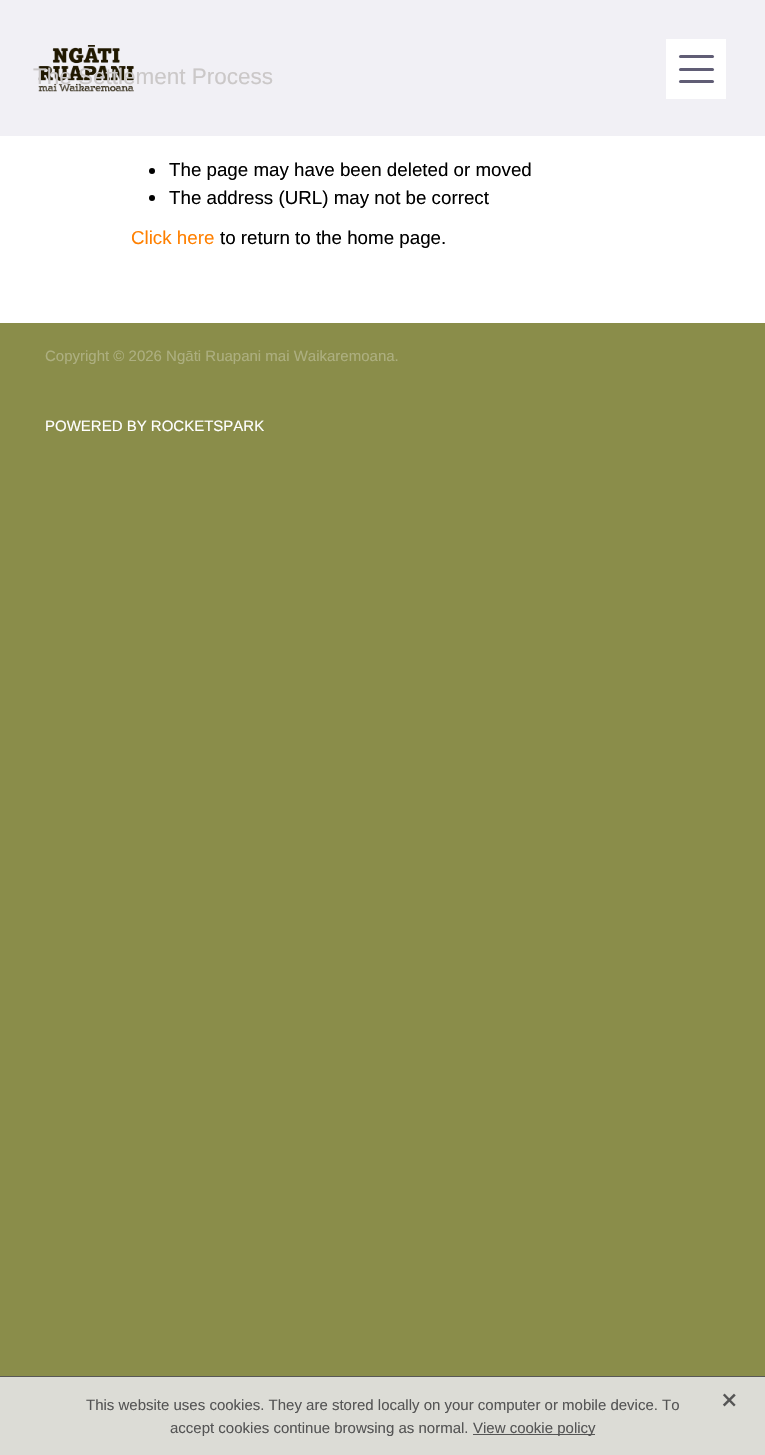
void draw(SkCanvas* canvas) {
  SkPaint paint;
  paint.setAntiAlias(true);
  auto face = [&](const char* family, int weight, float size, bool italic = false) {
    SkFontStyle style(weight, SkFontStyle::kNormal_Width,
      italic ? SkFontStyle::kItalic_Slant : SkFontStyle::kUpright_Slant);
    SkFont result(fontMgr->matchFamilyStyle(family, style), size);
    result.setSubpixel(true);
    return result;
  };
  auto paste = [&](const char* path, float x, float y, float w, float h) {
    auto image = SkImages::DeferredFromEncodedData(SkData::MakeFromFileName(path));
    canvas->drawImageRect(image, SkRect::MakeXYWH(x, y, w, h), SkSamplingOptions());
  };
  auto shape = [&](const char* data, bool evenOdd = false) {
    SkPath result = *SkParsePath::FromSVGString(data);
    if (evenOdd) result.setFillType(SkPathFillType::kEvenOdd);
    return result;
  };
  canvas->clear(0xffffffff);
  paint.setColor(0xfff1f0f5);
  canvas->drawRect(SkRect::MakeXYWH(0, 0, 765, 136), paint);
  paste("img/1.png", 38, 45, 96, 47);
  paint.setColor(0xffffffff);
  canvas->drawRect(SkRect::MakeXYWH(666, 39, 60, 60), paint);
  paint.setColor(0xff605d75);
  canvas->drawRoundRect(SkRect::MakeXYWH(679, 68, 35, 3), 1.5f, 1.5f, paint);
  canvas->drawRoundRect(SkRect::MakeXYWH(679, 55, 35, 3), 1.5f, 1.5f, paint);
  canvas->drawRoundRect(SkRect::MakeXYWH(679, 80, 35, 3), 1.5f, 1.5f, paint);
  paint.setColor(0xff000000);
  canvas->drawCircle(152, 171, 3, paint);
  canvas->drawCircle(152, 198, 3, paint);
  paint.setColor(0xff8a8d4a);
  canvas->drawPath(shape("M-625 323V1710H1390V323H765V460H0V323Z"), paint);
  {
    const struct { float x, y, w, h; SkColor color; } items[] = {
      {0, 323, 765, 137, 0xff8a8d4a},
      {0, 1377, 765, 78, 0xffdcdcd6},
      {0, 1376, 765, 1, 0xff585856},
      {473, 1434, 122, 1, 0xff555555},
    };
    for (auto [x, y, w, h, color] : items) {
      paint.setColor(color);
      canvas->drawRect(SkRect::MakeXYWH(x, y, w, h), paint);
    }
  }
  paste("img/2.png", 722, 1393, 14, 14);
  auto f0 = face("Liberation Sans", 400, 22.5f);
  paint.setColor(0xffcbc8c8);
  canvas->drawString("The Settlement Process", 33, 84, f0, paint);
  auto f1 = face("Liberation Sans", 400, 18.75f);
  paint.setColor(0xff000000);
  canvas->drawString("The page may have been deleted or moved", 169, 176, f1, paint);
  canvas->drawString("The address (URL) may not be correct", 169, 204, f1, paint);
  paint.setColor(0xffff8000);
  canvas->drawString("Click here", 131, 244, f1, paint);
  paint.setColor(0xff000000);
  canvas->drawString("to return to the home page.", 220, 244, f1, paint);
  auto f2 = face("Liberation Sans", 400, 15);
  paint.setColor(0xffadaf80);
  canvas->drawString("Copyright © 2026 Ngāti Ruapani mai Waikaremoana.", 45, 361, f2, paint);
  paint.setColor(0xffffffff);
  canvas->drawString("POWERED BY ROCKETSPARK", 45, 431, f2, paint);
  paint.setColor(0xff555555);
  {
    const struct { const char* s; float x, y; } items[] = {
      {"This website uses cookies. They are stored locally on your computer or mobile device. To", 86, 1410},
      {"accept cookies continue browsing as normal.", 170, 1433},
      {"View cookie policy", 473, 1433},
    };
    for (auto [s, x, y] : items) {
      canvas->drawString(s, x, y, f2, paint);
    }
  }
}
